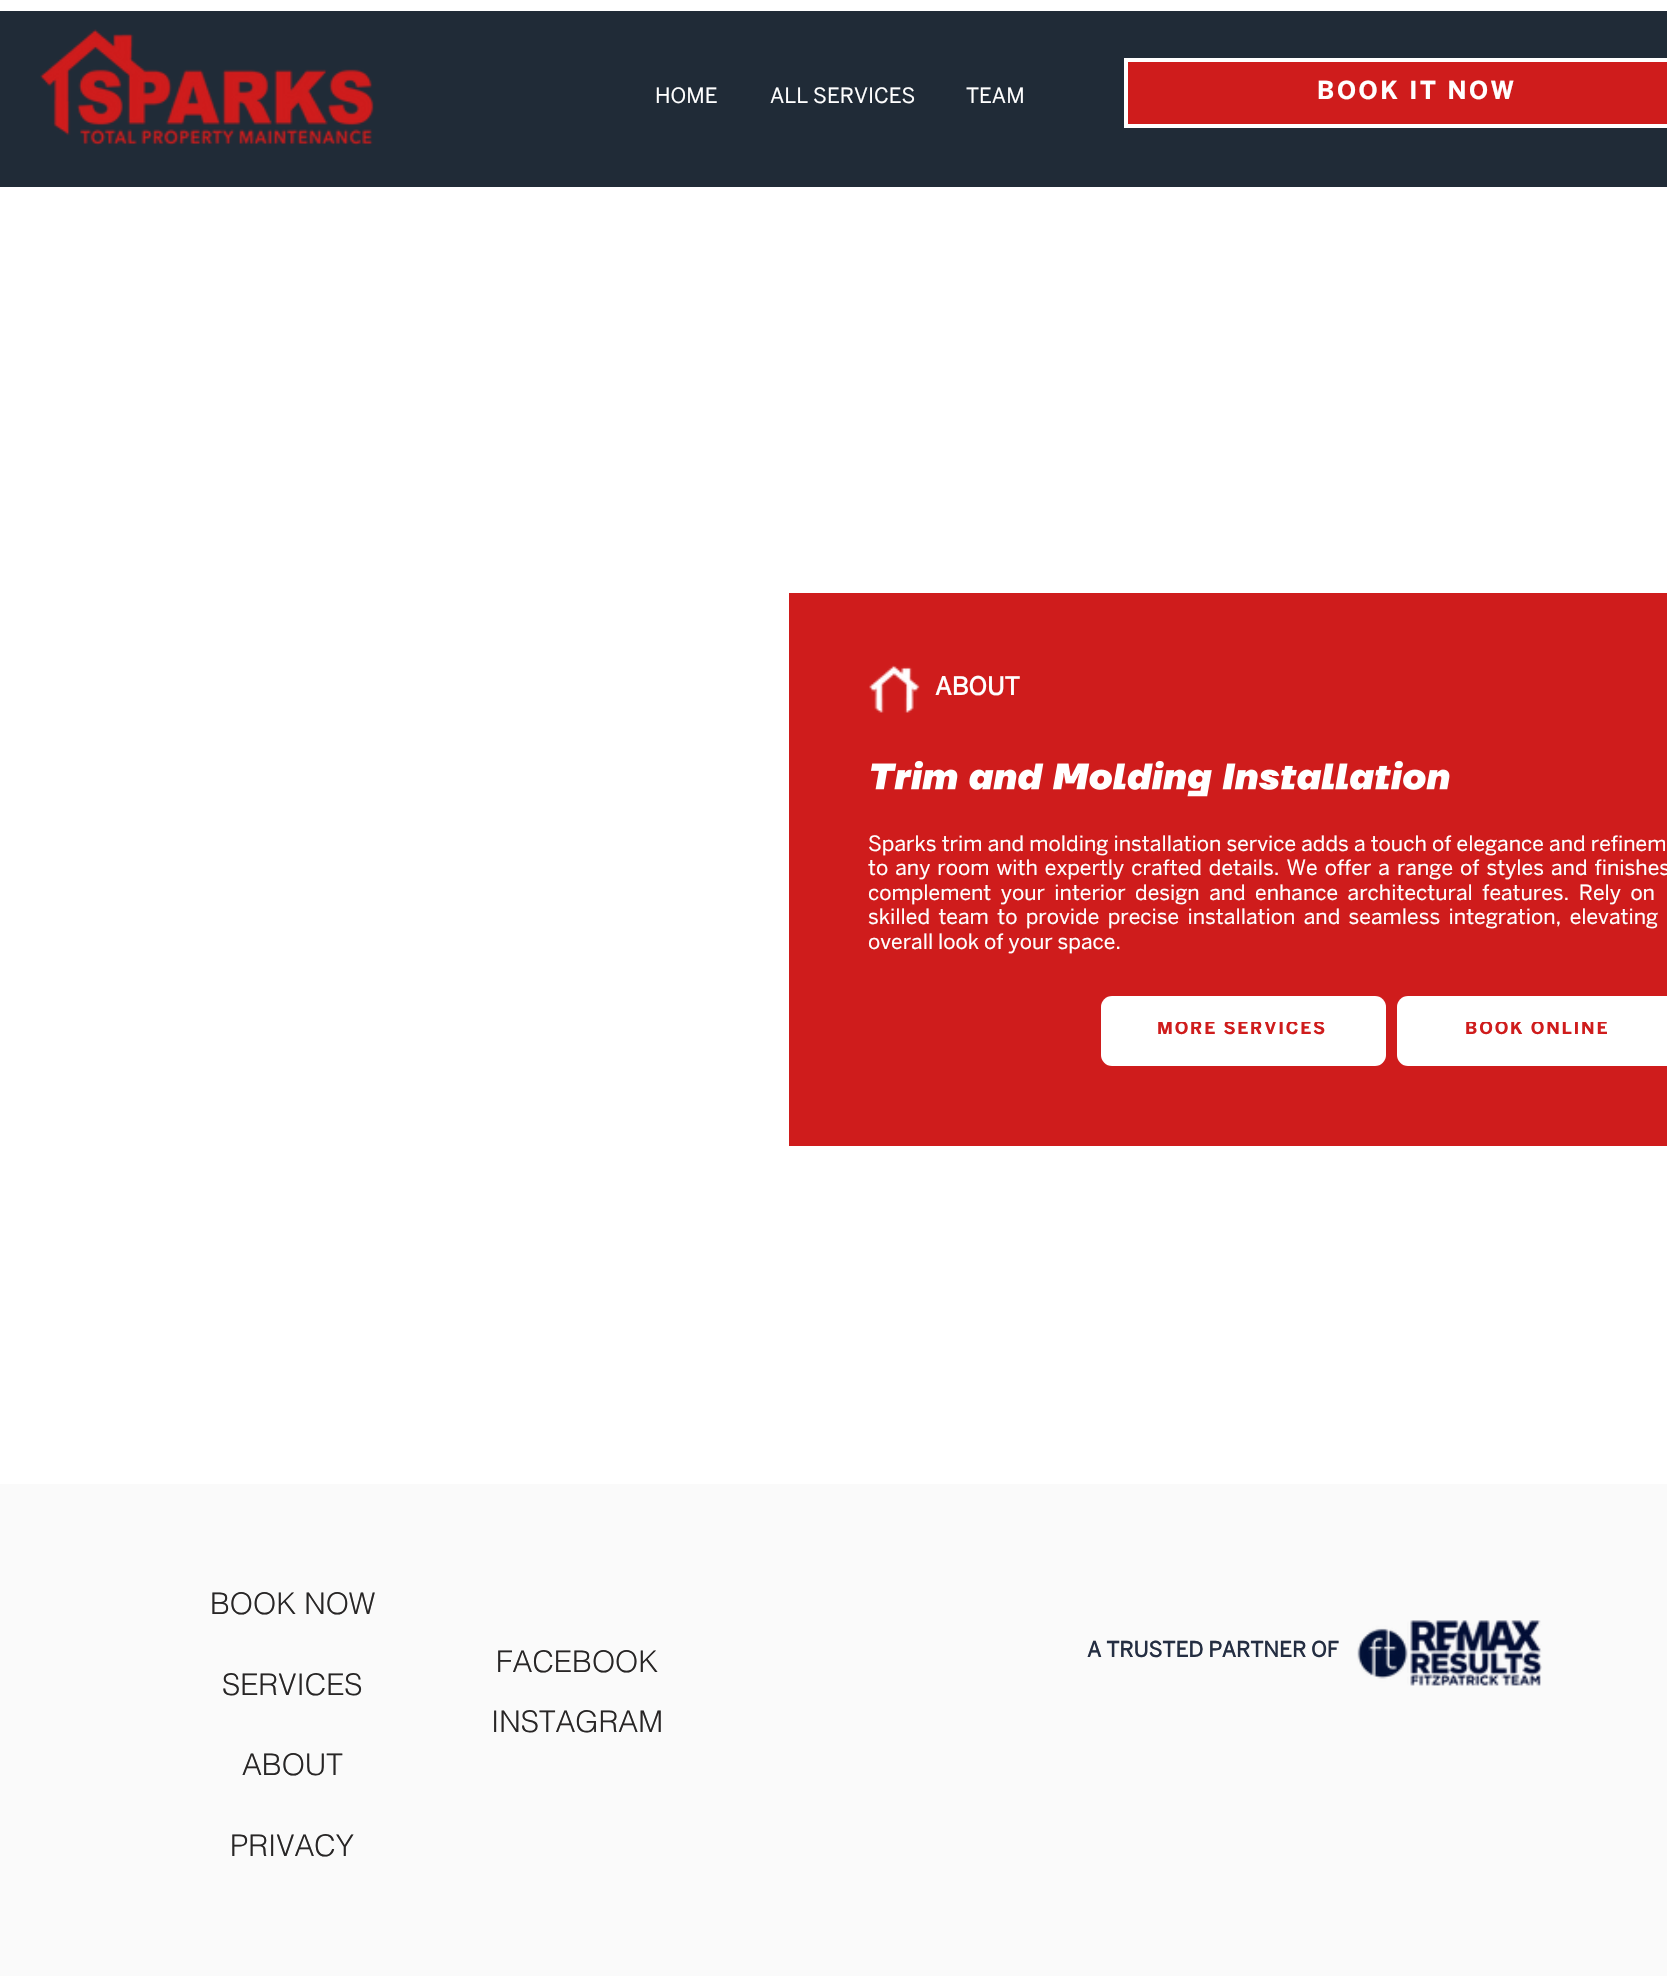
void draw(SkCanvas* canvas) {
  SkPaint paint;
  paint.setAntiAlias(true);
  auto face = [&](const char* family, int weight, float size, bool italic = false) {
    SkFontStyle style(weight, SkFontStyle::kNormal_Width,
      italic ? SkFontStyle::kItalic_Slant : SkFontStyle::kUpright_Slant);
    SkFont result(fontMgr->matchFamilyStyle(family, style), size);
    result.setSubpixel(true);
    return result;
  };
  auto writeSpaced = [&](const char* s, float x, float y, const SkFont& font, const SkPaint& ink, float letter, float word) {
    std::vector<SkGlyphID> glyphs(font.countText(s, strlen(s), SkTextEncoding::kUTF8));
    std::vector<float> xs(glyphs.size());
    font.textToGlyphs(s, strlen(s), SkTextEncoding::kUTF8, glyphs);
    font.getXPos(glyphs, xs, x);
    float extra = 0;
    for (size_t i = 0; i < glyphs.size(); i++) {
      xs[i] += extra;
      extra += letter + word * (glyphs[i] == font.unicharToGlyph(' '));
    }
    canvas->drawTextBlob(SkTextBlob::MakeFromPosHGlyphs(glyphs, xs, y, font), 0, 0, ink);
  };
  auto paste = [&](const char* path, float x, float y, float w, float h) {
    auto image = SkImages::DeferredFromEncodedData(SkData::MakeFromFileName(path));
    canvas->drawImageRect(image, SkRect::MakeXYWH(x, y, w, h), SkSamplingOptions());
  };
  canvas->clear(0xffffffff);
  paint.setColor(0xff202b37);
  canvas->drawRect(SkRect::MakeXYWH(0, 11, 1667, 176), paint);
  paste("img/1.png", 40, 29, 334, 117);
  paint.setColor(0xffcf1c1c);
  canvas->drawRect(SkRect::MakeXYWH(1126, 60, 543, 66), paint);
  paint.setStroke(true);
  paint.setStrokeWidth(4);
  paint.setColor(0xffffffff);
  canvas->drawRect(SkRect::MakeXYWH(1126, 60, 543, 66), paint);
  paint.setStroke(false);
  paint.setColor(0xffcf1c1c);
  canvas->drawRect(SkRect::MakeXYWH(789, 593, 878, 553), paint);
  paste("img/2.png", 869, 665, 51, 48);
  paste("img/3.png", 871, 761, 579, 36);
  paint.setColor(0xffffffff);
  canvas->drawRoundRect(SkRect::MakeXYWH(1101, 996, 285, 70), 11, 11, paint);
  canvas->drawRoundRect(SkRect::MakeXYWH(1397, 996, 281, 70), 11, 11, paint);
  paint.setColor(0xfffafafa);
  canvas->drawRect(SkRect::MakeXYWH(0, 1484, 1667, 492), paint);
  paste("img/4.png", 1357, 1620, 185, 66);
  auto f0 = face("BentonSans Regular", 400, 21);
  paint.setColor(0xffffffff);
  {
    const struct { const char* s; float x, y; } items[] = {
      {"HOME", 655, 103},
      {"ALL SERVICES", 770, 103},
      {"TEAM", 966, 103},
    };
    for (auto [s, x, y] : items) {
      canvas->drawString(s, x, y, f0, paint);
    }
  }
  auto f1 = face("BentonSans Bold", 700, 24.5f);
  writeSpaced("BOOK IT NOW", 1317, 99, f1, paint, 2.5f, 0);
  auto f2 = face("BentonSans Regular", 700, 24.5f);
  canvas->drawString("ABOUT", 935, 695, f2, paint);
  writeSpaced("Sparks trim and molding installation service adds a touch of elegance and refinem", 868, 851, f0, paint, 0, 0.25f);
  writeSpaced("to any room with expertly crafted details. We offer a range of styles and finishes", 868, 875, f0, paint, 0, 2.1f);
  writeSpaced("complement your interior design and enhance architectural features. Rely on", 868, 900, f0, paint, 0, 4.5f);
  writeSpaced("skilled team to provide precise installation and seamless integration, elevating", 868, 924, f0, paint, 0, 3.5f);
  canvas->drawString("overall look of your space.", 868, 949, f0, paint);
  canvas->save();
  canvas->clipRect(SkRect::MakeXYWH(1157, 1022, 170, 18));
  auto f3 = face("BentonSans Bold", 700, 17.5f);
  paint.setColor(0xffcf1c1c);
  writeSpaced("MORE SERVICES", 1157, 1034, f3, paint, 1.75f, 0);
  canvas->restore();
  canvas->save();
  canvas->clipRect(SkRect::MakeXYWH(1465, 1022, 145, 18));
  writeSpaced("BOOK ONLINE", 1465, 1034, f3, paint, 1.75f, 0);
  canvas->restore();
  auto f4 = face("helvetica", 300, 29.75f);
  paint.setColor(0xff282626);
  {
    const struct { const char* s; float x, y; } items[] = {
      {"BOOK NOW", 210, 1614},
      {"SERVICES", 222, 1695},
      {"ABOUT", 242, 1775},
      {"PRIVACY", 230, 1856},
      {"FACEBOOK", 496, 1672},
      {"INSTAGRAM", 491, 1732},
    };
    for (auto [s, x, y] : items) {
      canvas->drawString(s, x, y, f4, paint);
    }
  }
  auto f5 = face("BentonSans Regular", 700, 21);
  paint.setColor(0xff242e42);
  canvas->drawString("A TRUSTED PARTNER OF", 1087, 1657, f5, paint);
}
